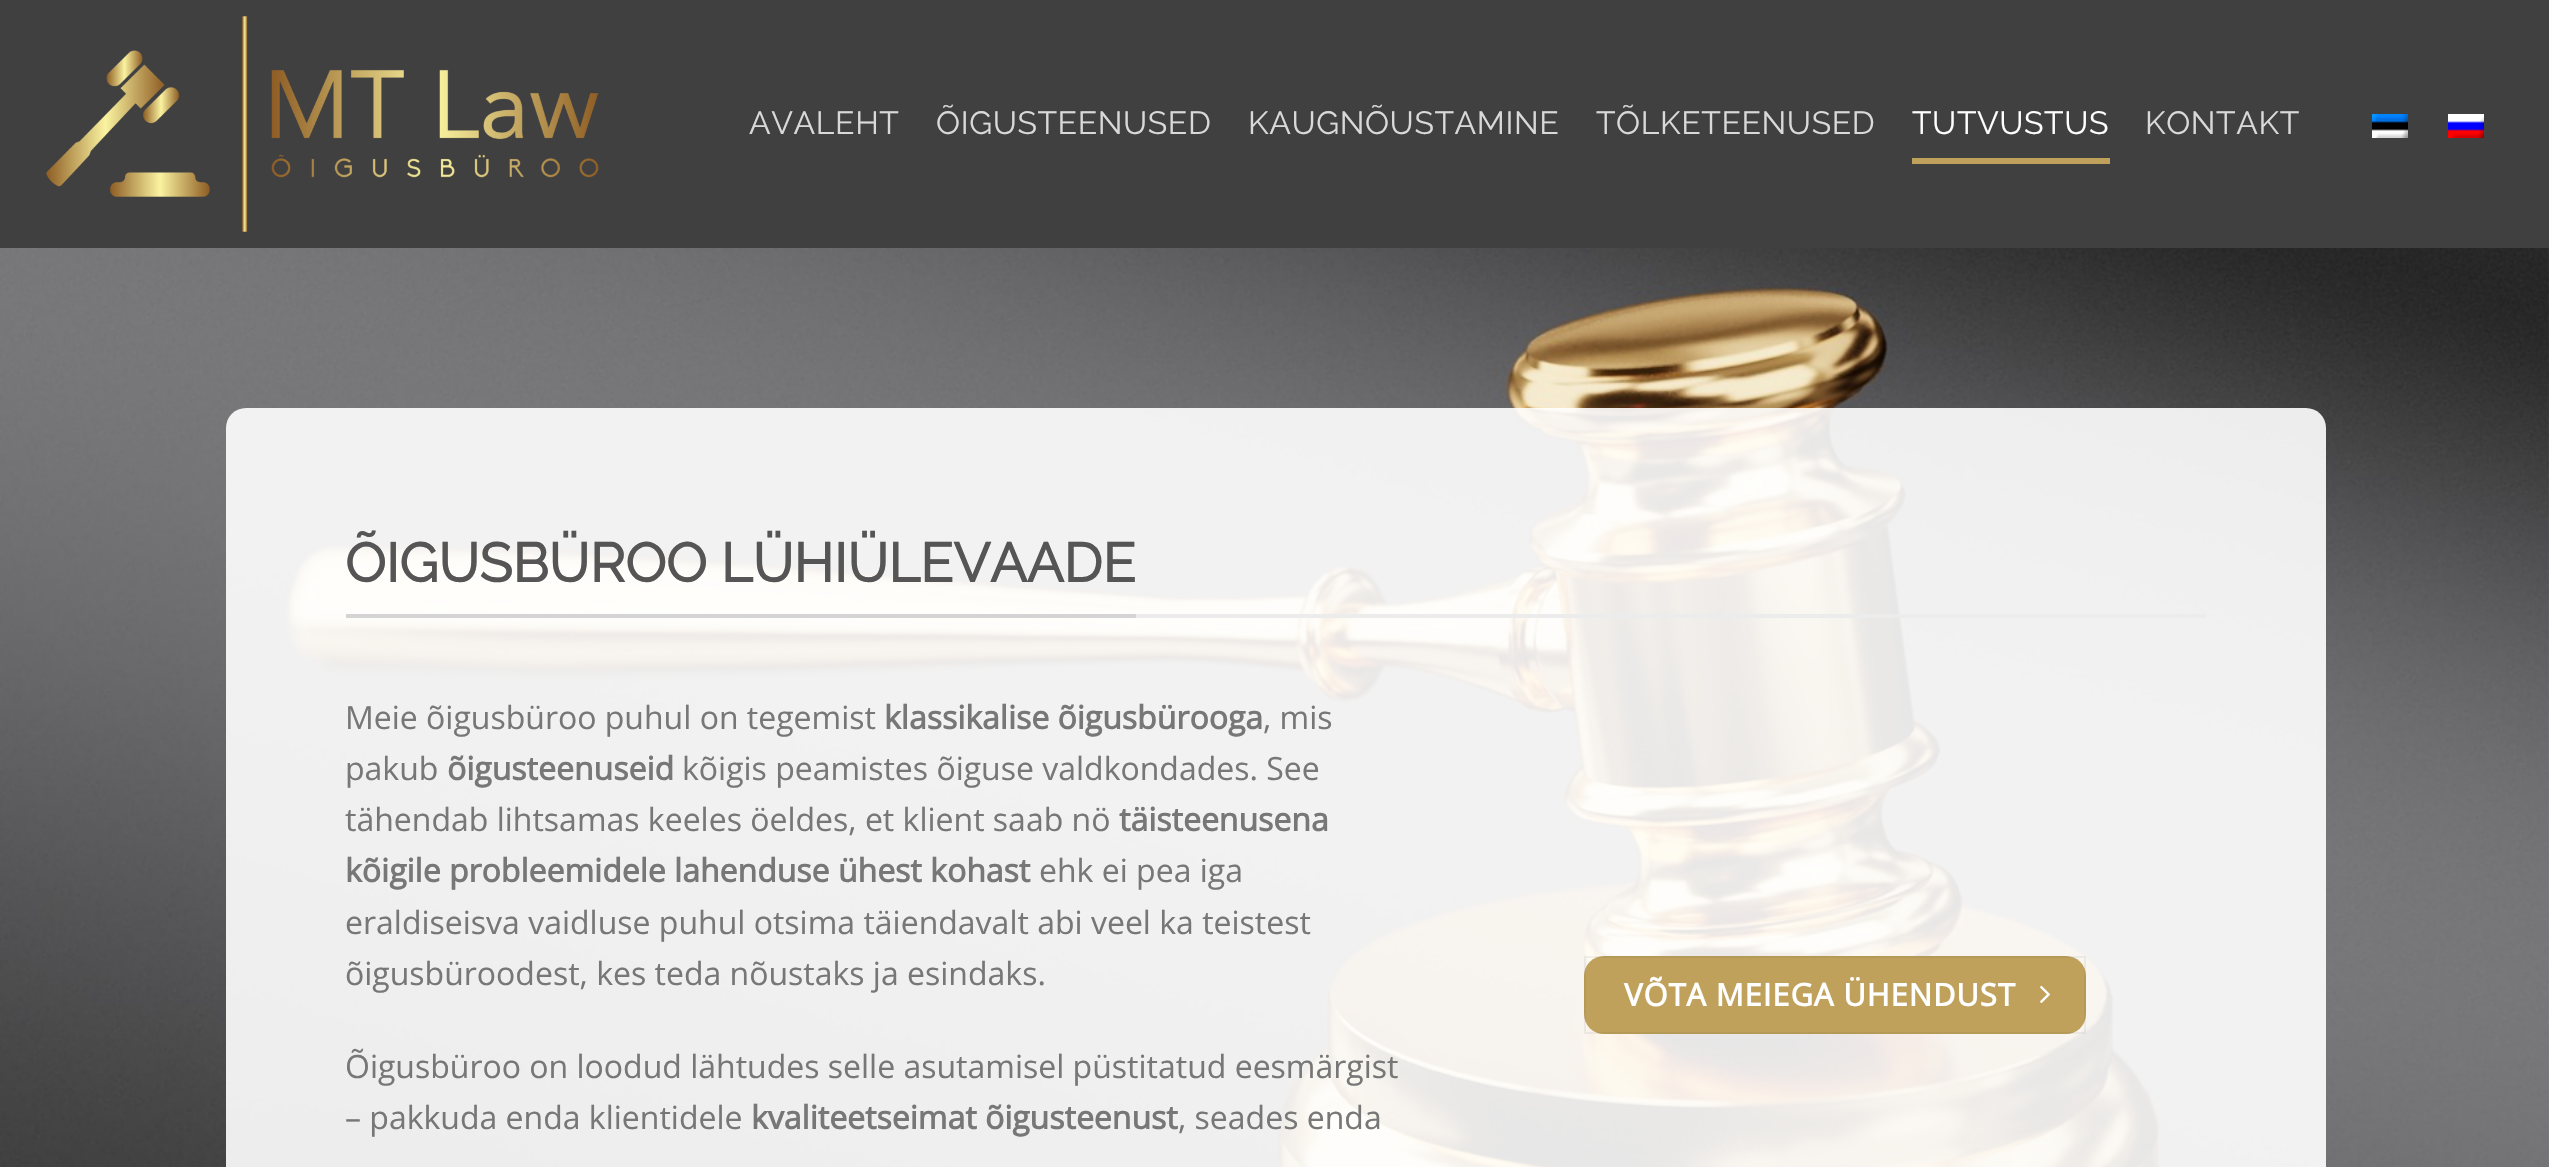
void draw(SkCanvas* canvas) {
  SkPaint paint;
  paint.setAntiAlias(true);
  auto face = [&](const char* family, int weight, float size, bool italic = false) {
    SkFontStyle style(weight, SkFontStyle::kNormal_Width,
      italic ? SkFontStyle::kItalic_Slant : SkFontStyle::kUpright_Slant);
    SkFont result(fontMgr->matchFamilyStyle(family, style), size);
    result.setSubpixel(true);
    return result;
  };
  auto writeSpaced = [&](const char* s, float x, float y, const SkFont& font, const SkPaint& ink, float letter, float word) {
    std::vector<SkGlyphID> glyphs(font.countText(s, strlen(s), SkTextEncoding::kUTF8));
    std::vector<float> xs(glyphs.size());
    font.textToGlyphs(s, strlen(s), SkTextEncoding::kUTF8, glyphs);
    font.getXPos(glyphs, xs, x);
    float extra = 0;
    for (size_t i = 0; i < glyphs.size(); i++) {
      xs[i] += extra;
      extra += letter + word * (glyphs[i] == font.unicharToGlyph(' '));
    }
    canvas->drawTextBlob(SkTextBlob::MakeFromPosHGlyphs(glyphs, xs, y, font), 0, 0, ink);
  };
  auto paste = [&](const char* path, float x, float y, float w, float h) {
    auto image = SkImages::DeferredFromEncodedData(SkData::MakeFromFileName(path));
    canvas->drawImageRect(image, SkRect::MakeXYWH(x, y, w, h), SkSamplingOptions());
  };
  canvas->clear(0xffffffff);
  paint.setColor(0xff404040);
  canvas->drawRect(SkRect::MakeXYWH(0, 0, 2549, 248), paint);
  paste("img/1.png", 46, 16, 553, 216);
  paint.setColor(0xffbfa15c);
  canvas->drawRect(SkRect::MakeXYWH(1912, 158, 198, 6), paint);
  paste("img/2.png", 2372, 114, 36, 24);
  paste("img/3.png", 2448, 114, 36, 24);
  paste("img/4.png", 0, 248, 2549, 919);
  paint.setColor(0xe6ffffff);
  canvas->drawRoundRect(SkRect::MakeXYWH(226, 408, 2100, 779), 20, 20, paint);
  paint.setColor(0xffececec);
  canvas->drawRect(SkRect::MakeXYWH(1136, 614, 1070, 4), paint);
  paint.setColor(0xffd4d4d4);
  canvas->drawRect(SkRect::MakeXYWH(346, 614, 790, 4), paint);
  paint.setColor(0xffbfa15c);
  canvas->drawRoundRect(SkRect::MakeXYWH(1584, 956, 502, 78), 20, 20, paint);
  paint.setStroke(true);
  paint.setStrokeWidth(2);
  paint.setColor(0x0d000000);
  canvas->drawRect(SkRect::MakeXYWH(1585, 957, 500, 76), paint);
  paste("img/5.png", 2040, 985, 10, 18);
  auto f0 = face("Raleway", 100, 32);
  paint.setStroke(false);
  paint.setColor(0xffd9d9d9);
  {
    const struct { const char* s; float x, y; } items[] = {
      {"AVALEHT", 749, 134},
      {"ÕIGUSTEENUSED", 936, 134},
      {"KAUGNÕUSTAMINE", 1248, 134},
      {"TÕLKETEENUSED", 1596, 134},
    };
    for (auto [s, x, y] : items) {
      writeSpaced(s, x, y, f0, paint, 0.6f, 0);
    }
  }
  paint.setColor(0xffffffff);
  writeSpaced("TUTVUSTUS", 1912, 134, f0, paint, 0.6f, 0);
  paint.setColor(0xffd9d9d9);
  writeSpaced("KONTAKT", 2145, 134, f0, paint, 0.6f, 0);
  auto f1 = face("Raleway", 700, 54.4f);
  paint.setColor(0xff555555);
  canvas->drawString("ÕIGUSBÜROO LÜHIÜLEVAADE", 345, 582, f1, paint);
  auto f2 = face("Open Sans", 400, 32);
  paint.setColor(0xff777777);
  canvas->drawString("Meie õigusbüroo puhul on tegemist", 345, 729, f2, paint);
  auto f3 = face("Open Sans", 700, 32);
  canvas->drawString("klassikalise õigusbürooga", 884, 729, f3, paint);
  canvas->drawString(", mis", 1263, 729, f2, paint);
  canvas->drawString("pakub", 345, 780, f2, paint);
  canvas->drawString("õigusteenuseid", 447, 780, f3, paint);
  canvas->drawString("kõigis peamistes õiguse valdkondades. See", 682, 780, f2, paint);
  canvas->drawString("tähendab lihtsamas keeles öeldes, et klient saab nö", 345, 831, f2, paint);
  canvas->drawString("täisteenusena", 1119, 831, f3, paint);
  canvas->drawString("kõigile probleemidele lahenduse ühest kohast", 345, 882, f3, paint);
  {
    const struct { const char* s; float x, y; } items[] = {
      {"ehk ei pea iga", 1039, 882},
      {"eraldiseisva vaidluse puhul otsima täiendavalt abi veel ka teistest", 345, 934},
      {"õigusbüroodest, kes teda nõustaks ja esindaks.", 345, 985},
      {"Õigusbüroo on loodud lähtudes selle asutamisel püstitatud eesmärgist", 345, 1078},
      {"– pakkuda enda klientidele", 345, 1129},
    };
    for (auto [s, x, y] : items) {
      canvas->drawString(s, x, y, f2, paint);
    }
  }
  canvas->drawString("kvaliteetseimat õigusteenust", 751, 1129, f3, paint);
  canvas->drawString(", seades enda", 1178, 1129, f2, paint);
  auto f4 = face("Open Sans", 700, 31);
  paint.setColor(0xffffffff);
  writeSpaced("VÕTA MEIEGA ÜHENDUST", 1624, 1006, f4, paint, 0.9f, 0);
}
